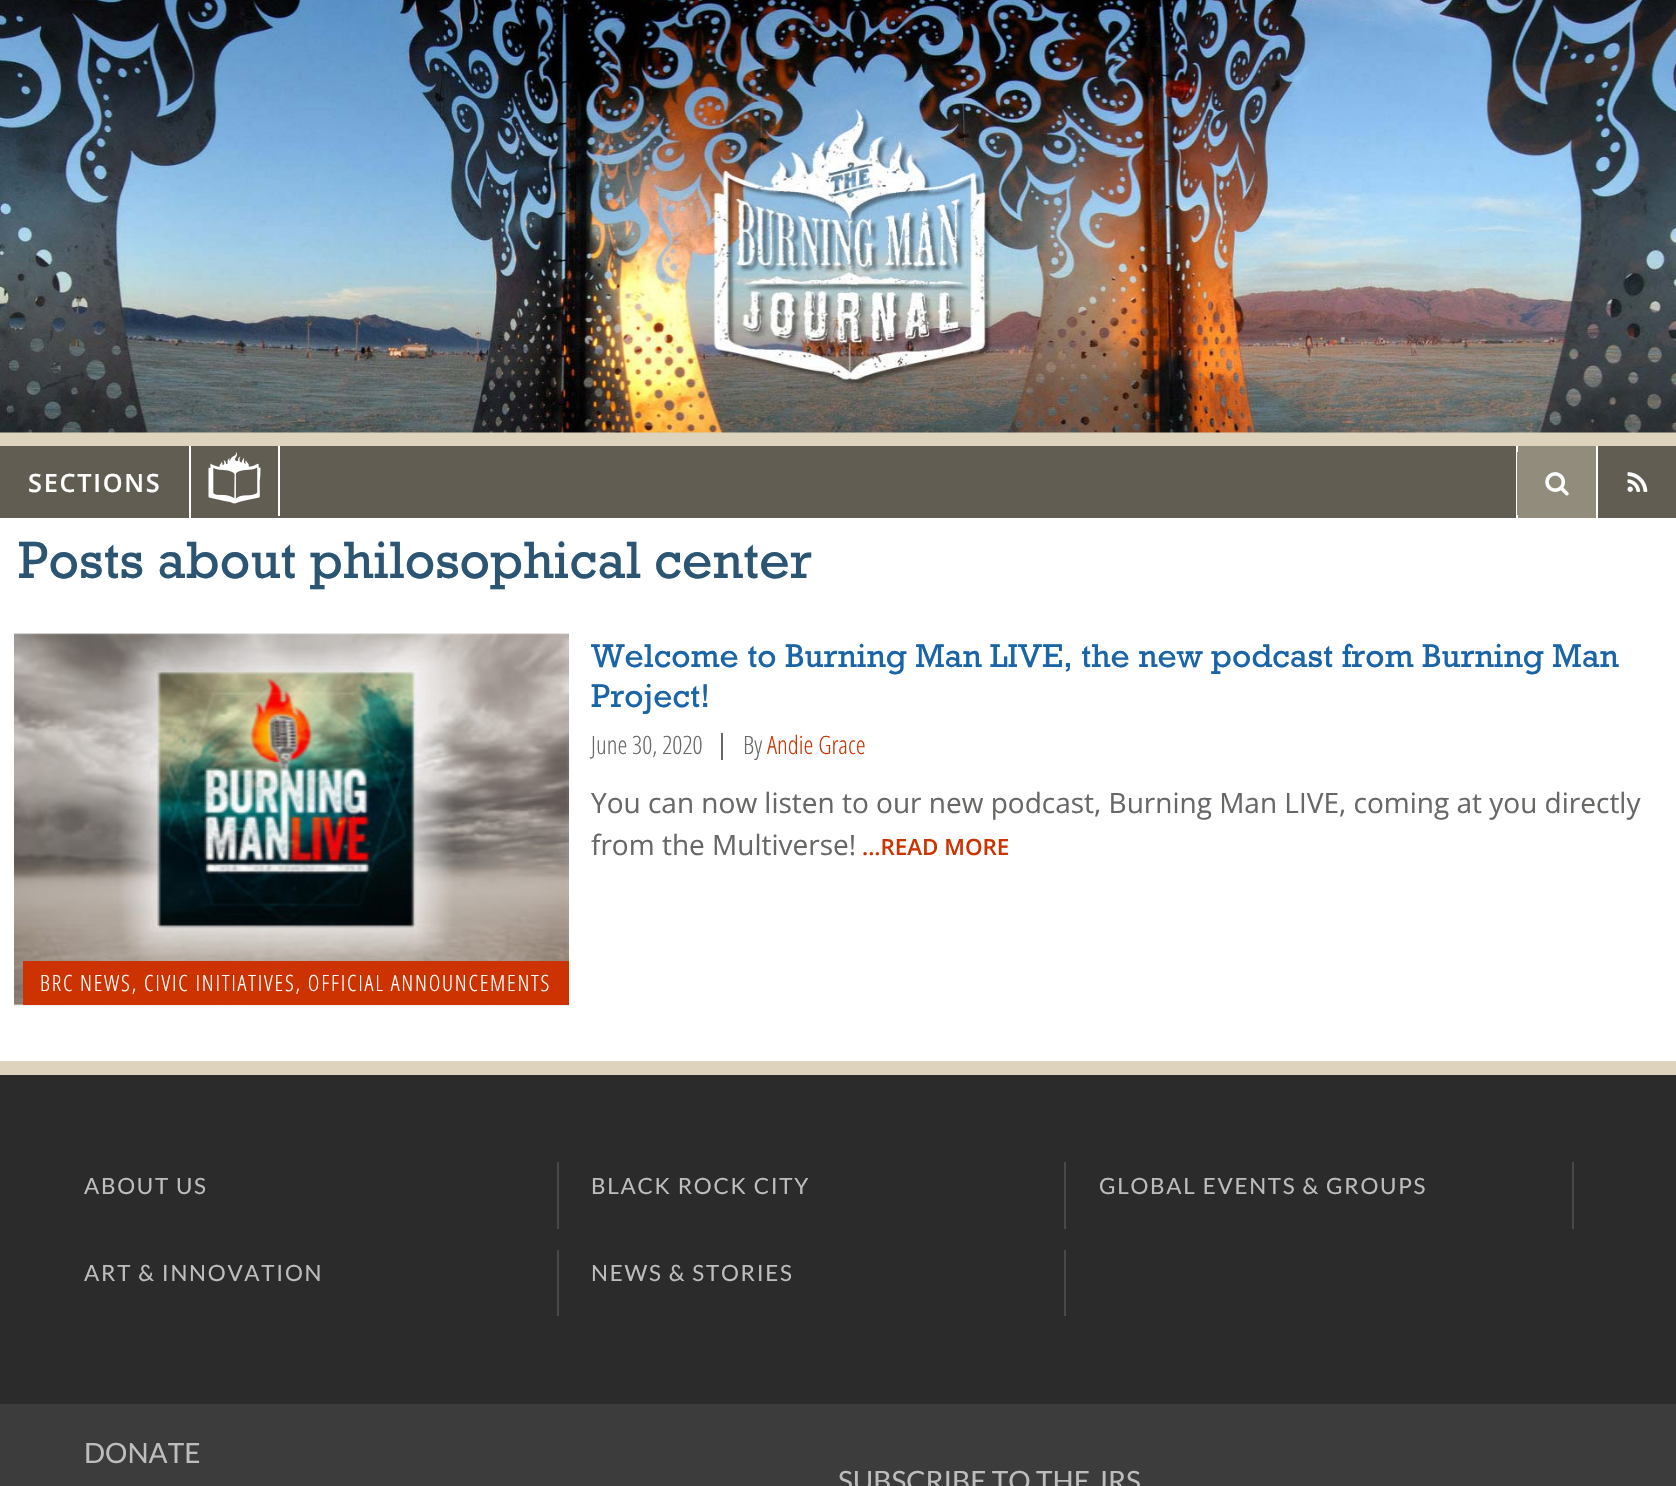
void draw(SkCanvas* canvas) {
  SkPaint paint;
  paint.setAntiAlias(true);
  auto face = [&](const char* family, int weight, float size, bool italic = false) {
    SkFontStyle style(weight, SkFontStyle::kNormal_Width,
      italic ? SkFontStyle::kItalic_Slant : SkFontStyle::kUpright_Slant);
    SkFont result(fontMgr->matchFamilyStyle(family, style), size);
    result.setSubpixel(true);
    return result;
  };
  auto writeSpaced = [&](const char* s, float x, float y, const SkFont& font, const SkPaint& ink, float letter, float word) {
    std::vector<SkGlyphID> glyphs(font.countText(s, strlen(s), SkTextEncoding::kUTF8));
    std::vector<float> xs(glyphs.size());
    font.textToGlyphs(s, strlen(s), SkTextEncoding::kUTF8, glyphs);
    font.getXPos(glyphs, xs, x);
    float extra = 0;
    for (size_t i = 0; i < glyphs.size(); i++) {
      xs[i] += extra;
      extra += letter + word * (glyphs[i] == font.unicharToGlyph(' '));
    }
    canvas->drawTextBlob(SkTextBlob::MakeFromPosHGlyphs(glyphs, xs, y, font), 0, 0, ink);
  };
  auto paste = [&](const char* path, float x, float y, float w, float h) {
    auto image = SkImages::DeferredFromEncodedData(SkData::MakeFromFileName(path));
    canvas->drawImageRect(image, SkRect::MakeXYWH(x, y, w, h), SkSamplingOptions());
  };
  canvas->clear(0xffded4be);
  paste("img/1.png", 0, 0, 1676, 433);
  {
    const struct { float x, y, w, h; SkColor color; } items[] = {
      {0, 446, 1676, 72, 0xff625d53},
      {189, 446, 2, 72, 0xffffffff},
      {278, 446, 2, 70, 0xffffffff},
    };
    for (auto [x, y, w, h, color] : items) {
      paint.setColor(color);
      canvas->drawRect(SkRect::MakeXYWH(x, y, w, h), paint);
    }
  }
  paste("img/2.png", 208, 452, 53, 52);
  {
    const struct { float x, y, w, h; SkColor color; } items[] = {
      {1518, 446, 78, 72, 0xff928c7d},
      {1596, 446, 2, 72, 0xffffffff},
      {1516, 446, 2, 72, 0xffffffff},
      {1517, 452, 1, 63, 0xff928c7d},
    };
    for (auto [x, y, w, h, color] : items) {
      paint.setColor(color);
      canvas->drawRect(SkRect::MakeXYWH(x, y, w, h), paint);
    }
  }
  paste("img/3.png", 1545, 472, 24, 24);
  paste("img/4.png", 1627, 472, 21, 20);
  paint.setColor(0xffffffff);
  canvas->drawRect(SkRect::MakeXYWH(0, 518, 1676, 543), paint);
  paint.setColor(0xff686765);
  canvas->drawRect(SkRect::MakeXYWH(721, 733, 2, 27), paint);
  paste("img/5.png", 14, 633, 555, 373);
  {
    const struct { float x, y, w, h; SkColor color; } items[] = {
      {23, 961, 546, 44, 0xffcd3301},
      {0, 1075, 1676, 329, 0xff2b2b2b},
      {557, 1162, 2, 67, 0xff494949},
      {1064, 1162, 2, 67, 0xff494949},
      {1572, 1162, 2, 67, 0xff494949},
      {557, 1250, 2, 66, 0xff494949},
      {1064, 1250, 2, 66, 0xff494949},
      {0, 1404, 1676, 82, 0xff3c3c3c},
    };
    for (auto [x, y, w, h, color] : items) {
      paint.setColor(color);
      canvas->drawRect(SkRect::MakeXYWH(x, y, w, h), paint);
    }
  }
  auto f0 = face("Open Sans", 600, 25.25f);
  paint.setColor(0xffffffff);
  writeSpaced("SECTIONS", 28, 492, f0, paint, 1.75f, 0);
  auto f1 = face("Rockwell", 400, 53.25f);
  paint.setColor(0xff2c5573);
  canvas->drawString("Posts about philosophical center", 18, 578, f1, paint);
  auto f2 = face("Rockwell", 400, 33.6f);
  paint.setColor(0xff1a64a8);
  canvas->drawString("Welcome to Burning Man LIVE, the new podcast from Burning Man", 591, 667, f2, paint);
  canvas->drawString("Project!", 591, 707, f2, paint);
  auto f3 = face("Open Sans Condensed", 300, 25.25f);
  paint.setColor(0xff686765);
  canvas->drawString("June 30, 2020", 591, 754, f3, paint);
  canvas->drawString("By", 743, 754, f3, paint);
  paint.setColor(0xffcd3301);
  canvas->drawString("Andie Grace", 767, 754, f3, paint);
  auto f4 = face("Open Sans", 400, 28);
  paint.setColor(0xff686765);
  canvas->drawString("You can now listen to our new podcast, Burning Man LIVE, coming at you directly", 591, 813, f4, paint);
  canvas->drawString("from the Multiverse!", 591, 855, f4, paint);
  auto f5 = face("Open Sans", 600, 22.4f);
  paint.setColor(0xffcd3301);
  canvas->drawString("...READ MORE", 862, 855, f5, paint);
  auto f6 = face("Open Sans Condensed", 300, 22.4f);
  paint.setColor(0xffffffff);
  writeSpaced("BRC NEWS, CIVIC INITIATIVES, OFFICIAL ANNOUNCEMENTS", 40, 991, f6, paint, 1.75f, 0);
  auto f7 = face("Lato", 400, 22.4f);
  paint.setColor(0xffbdbdbd);
  {
    const struct { const char* s; float x, y; } items[] = {
      {"ABOUT US", 84, 1194},
      {"BLACK ROCK CITY", 591, 1194},
      {"GLOBAL EVENTS & GROUPS", 1099, 1194},
      {"ART & INNOVATION", 84, 1281},
      {"NEWS & STORIES", 591, 1281},
    };
    for (auto [s, x, y] : items) {
      writeSpaced(s, x, y, f7, paint, 1.75f, 0);
    }
  }
  auto f8 = face("Lato", 400, 28);
  canvas->drawString("DONATE", 84, 1463, f8, paint);
  canvas->drawString("SUBSCRIBE TO THE JRS", 838, 1491, f8, paint);
}
